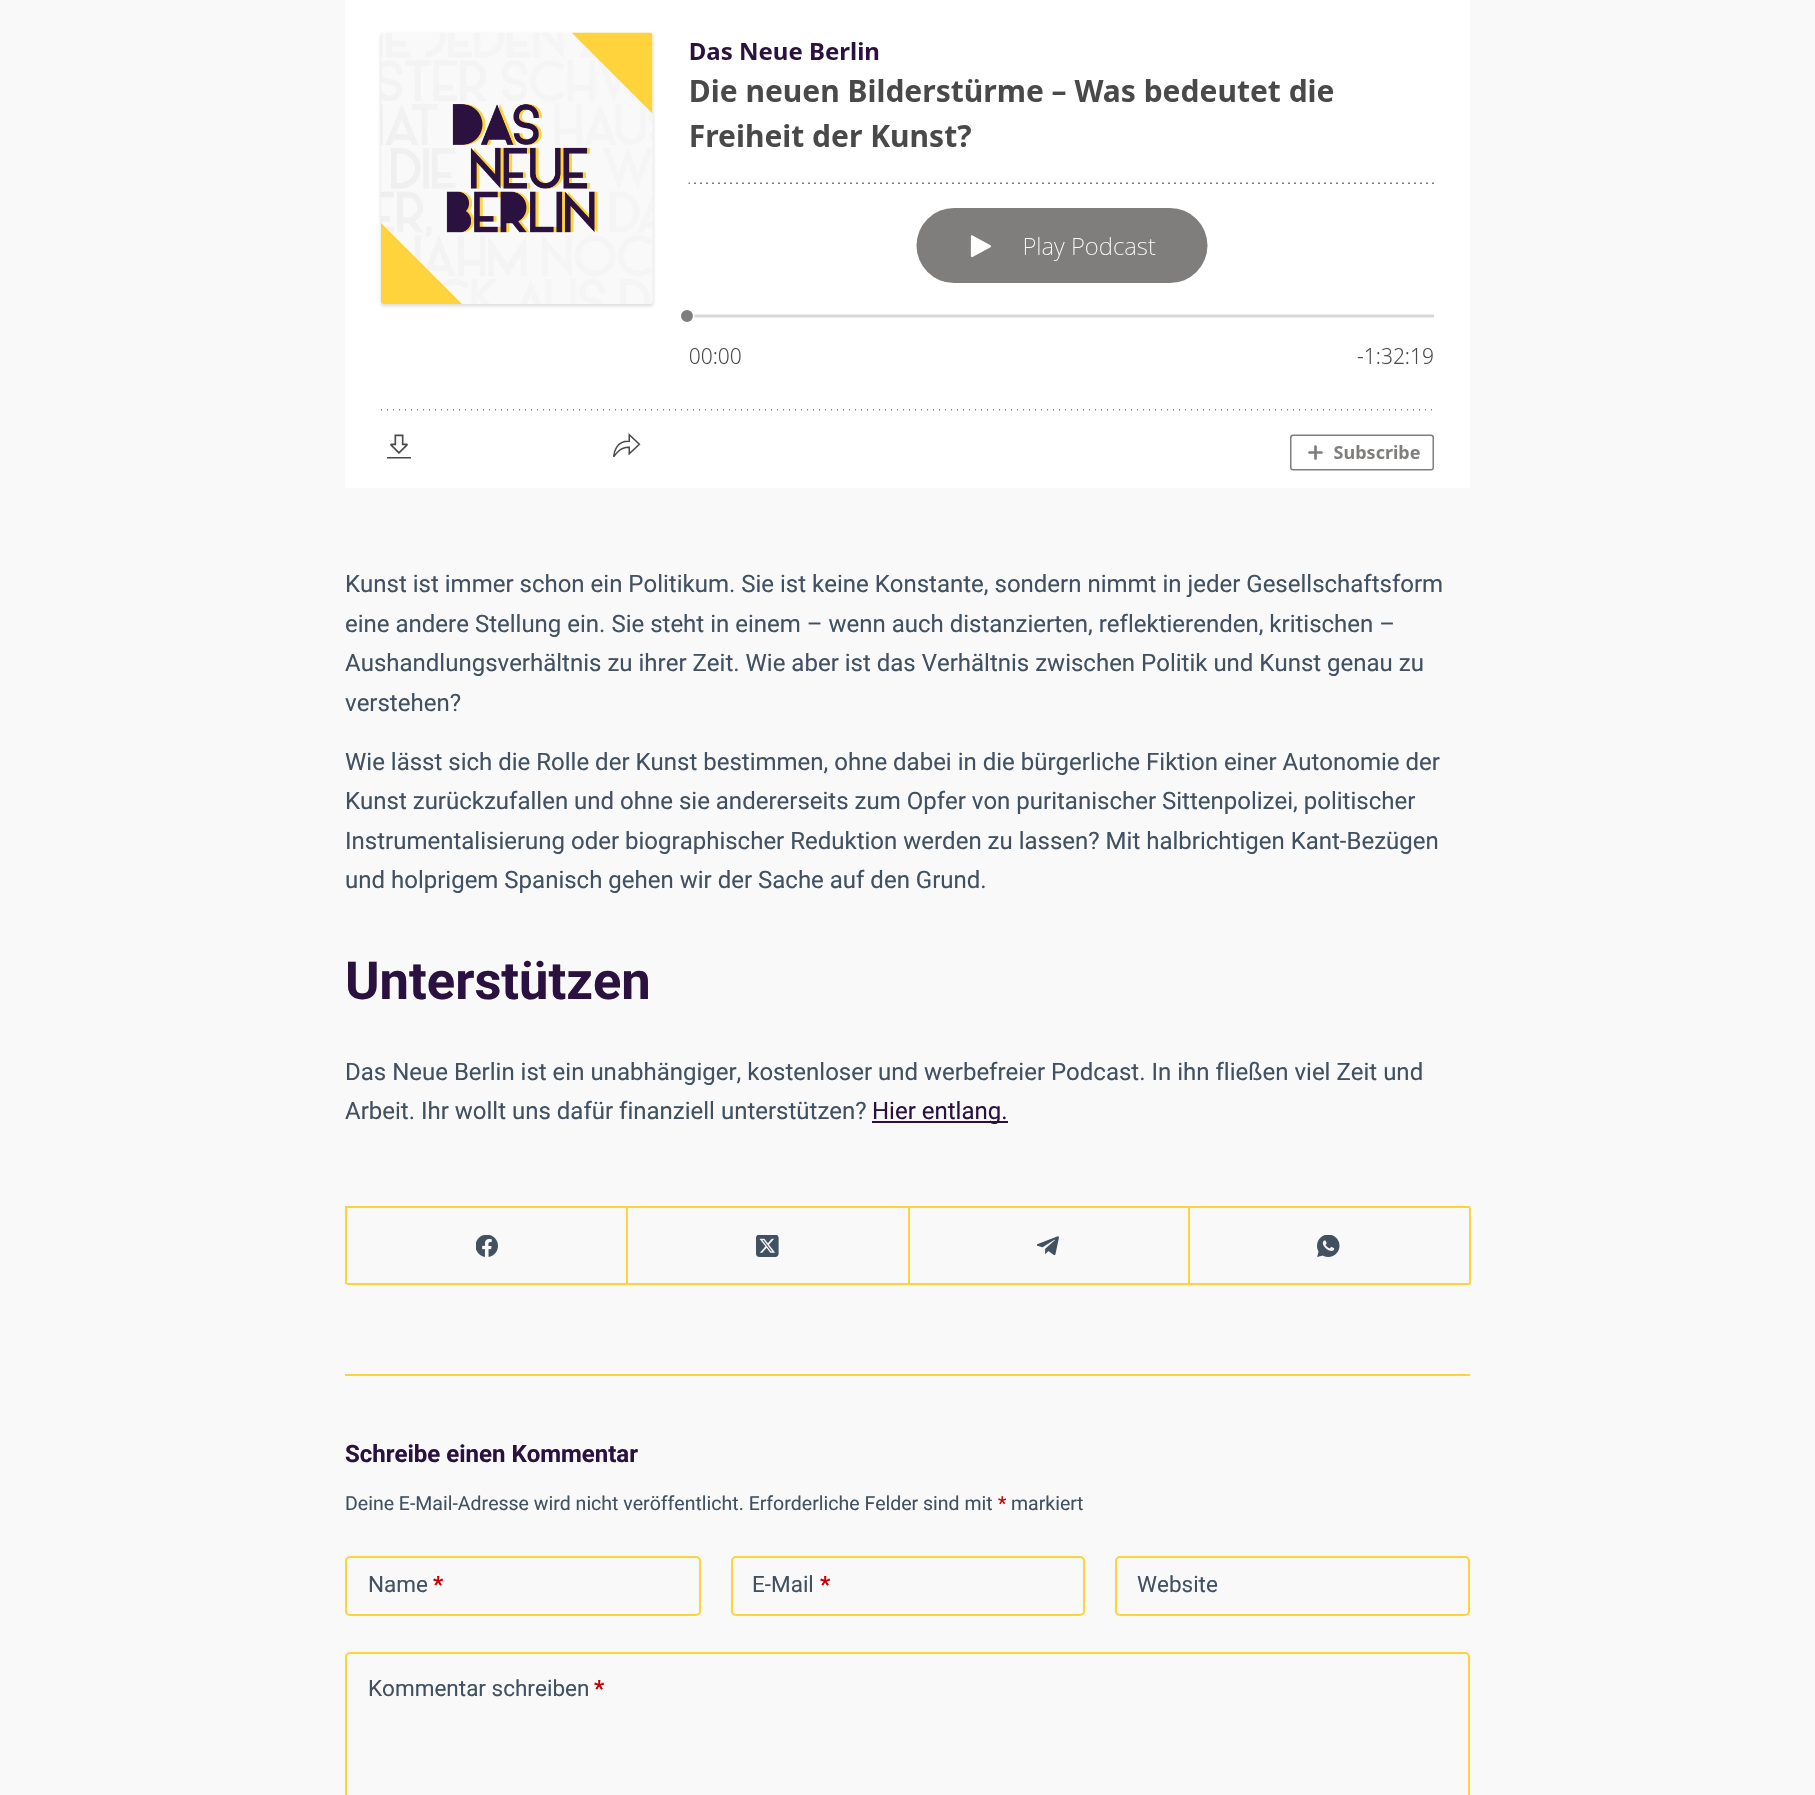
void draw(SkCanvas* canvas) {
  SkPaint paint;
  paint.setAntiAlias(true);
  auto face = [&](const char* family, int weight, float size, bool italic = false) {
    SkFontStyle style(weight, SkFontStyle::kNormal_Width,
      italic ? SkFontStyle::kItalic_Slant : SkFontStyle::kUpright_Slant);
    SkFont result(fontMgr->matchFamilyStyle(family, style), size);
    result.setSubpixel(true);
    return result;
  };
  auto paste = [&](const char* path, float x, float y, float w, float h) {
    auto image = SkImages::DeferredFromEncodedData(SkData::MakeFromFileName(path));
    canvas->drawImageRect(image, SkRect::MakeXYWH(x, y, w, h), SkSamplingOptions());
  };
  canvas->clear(0xffffffff);
  {
    const SkColor colors[] = {0xffffd33c, 0xfff9f9f9, 0xfff9f9f9, 0xffffd33c};
    const float stops[] = {0.05f, 0.05f, 0.95f, 0.95f};
    const SkPoint ends[] = {{-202, 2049}, {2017, -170}};
    paint.setShader(SkGradientShader::MakeLinear(ends, colors, stops, 4, SkTileMode::kClamp));
    paint.setAlpha(255);
  }
  canvas->drawRect(SkRect::MakeXYWH(0, 0, 1815, 1795), paint);
  paste("img/1.png", 345, 0, 1125, 488);
  paint.setShader(nullptr);
  {
    const struct { float x, y, w, h; SkColor color; } items[] = {
      {872, 1121, 136, 2, 0xff2a1140},
      {345, 1206, 1125, 2, 0xffffd33c},
      {345, 1206, 2, 78, 0xffffd33c},
      {626, 1208, 2, 76, 0xffffd33c},
      {347, 1283, 280, 2, 0xffffd33c},
    };
    for (auto [x, y, w, h, color] : items) {
      paint.setColor(color);
      canvas->drawRect(SkRect::MakeXYWH(x, y, w, h), paint);
    }
  }
  paste("img/2.png", 476, 1235, 22, 22);
  canvas->drawRect(SkRect::MakeXYWH(908, 1208, 2, 76), paint);
  canvas->drawRect(SkRect::MakeXYWH(627, 1283, 282, 2), paint);
  paste("img/3.png", 756, 1235, 23, 22);
  canvas->drawRect(SkRect::MakeXYWH(1188, 1208, 2, 76), paint);
  canvas->drawRect(SkRect::MakeXYWH(909, 1283, 281, 2), paint);
  paste("img/4.png", 1037, 1236, 22, 20);
  canvas->drawRect(SkRect::MakeXYWH(1469, 1208, 2, 76), paint);
  canvas->drawRect(SkRect::MakeXYWH(1190, 1283, 280, 2), paint);
  paste("img/5.png", 1317, 1235, 23, 22);
  canvas->drawRect(SkRect::MakeXYWH(345, 1374, 1125, 2), paint);
  paint.setStroke(true);
  paint.setStrokeWidth(2);
  canvas->drawRoundRect(SkRect::MakeXYWH(346, 1557, 354, 58), 4, 4, paint);
  canvas->drawRoundRect(SkRect::MakeXYWH(732, 1557, 352, 58), 4, 4, paint);
  canvas->drawRoundRect(SkRect::MakeXYWH(1116, 1557, 353, 58), 4, 4, paint);
  canvas->drawRoundRect(SkRect::MakeXYWH(346, 1653, 1123, 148), 4, 4, paint);
  auto f0 = face("Roboto", 400, 24);
  paint.setStroke(false);
  paint.setColor(0xff415161);
  {
    const struct { const char* s; float x, y; } items[] = {
      {"Kunst ist immer schon ein Politikum. Sie ist keine Konstante, sondern nimmt in jeder Gesellschaftsform", 345, 592},
      {"eine andere Stellung ein. Sie steht in einem – wenn auch distanzierten, reflektierenden, kritischen –", 345, 632},
      {"Aushandlungsverhältnis zu ihrer Zeit. Wie aber ist das Verhältnis zwischen Politik und Kunst genau zu", 345, 671},
      {"verstehen?", 345, 711},
      {"Wie lässt sich die Rolle der Kunst bestimmen, ohne dabei in die bürgerliche Fiktion einer Autonomie der", 345, 770},
      {"Kunst zurückzufallen und ohne sie andererseits zum Opfer von puritanischer Sittenpolizei, politischer", 345, 809},
      {"Instrumentalisierung oder biographischer Reduktion werden zu lassen? Mit halbrichtigen Kant-Bezügen", 345, 849},
      {"und holprigem Spanisch gehen wir der Sache auf den Grund.", 345, 888},
    };
    for (auto [s, x, y] : items) {
      canvas->drawString(s, x, y, f0, paint);
    }
  }
  auto f1 = face("Roboto", 700, 52.5f);
  paint.setColor(0xff2a1140);
  canvas->drawString("Unterstützen", 345, 999, f1, paint);
  paint.setColor(0xff415161);
  canvas->drawString("Das Neue Berlin ist ein unabhängiger, kostenloser und werbefreier Podcast. In ihn fließen viel Zeit und", 345, 1080, f0, paint);
  canvas->drawString("Arbeit. Ihr wollt uns dafür finanziell unterstützen?", 345, 1119, f0, paint);
  paint.setColor(0xff2a1140);
  canvas->drawString("Hier entlang.", 872, 1119, f0, paint);
  auto f2 = face("Roboto", 700, 24);
  canvas->drawString("Schreibe einen Kommentar", 345, 1462, f2, paint);
  auto f3 = face("Roboto", 400, 19.5f);
  paint.setColor(0xff415161);
  canvas->drawString("Deine E-Mail-Adresse wird nicht veröffentlicht. Erforderliche Felder sind mit", 345, 1510, f3, paint);
  paint.setColor(0xffcc0000);
  canvas->drawString("*", 998, 1510, f3, paint);
  paint.setColor(0xff415161);
  canvas->drawString("markiert", 1011, 1510, f3, paint);
  auto f4 = face("Roboto", 400, 22.5f);
  canvas->drawString("Name", 368, 1592, f4, paint);
  auto f5 = face("Roboto", 700, 22.5f);
  paint.setColor(0xffcc0000);
  canvas->drawString("*", 433, 1592, f5, paint);
  paint.setColor(0xff415161);
  canvas->drawString("E-Mail", 752, 1592, f4, paint);
  paint.setColor(0xffcc0000);
  canvas->drawString("*", 820, 1592, f5, paint);
  paint.setColor(0xff415161);
  canvas->drawString("Website", 1137, 1592, f4, paint);
  canvas->drawString("Kommentar schreiben", 368, 1696, f4, paint);
  paint.setColor(0xffcc0000);
  canvas->drawString("*", 594, 1696, f5, paint);
}
